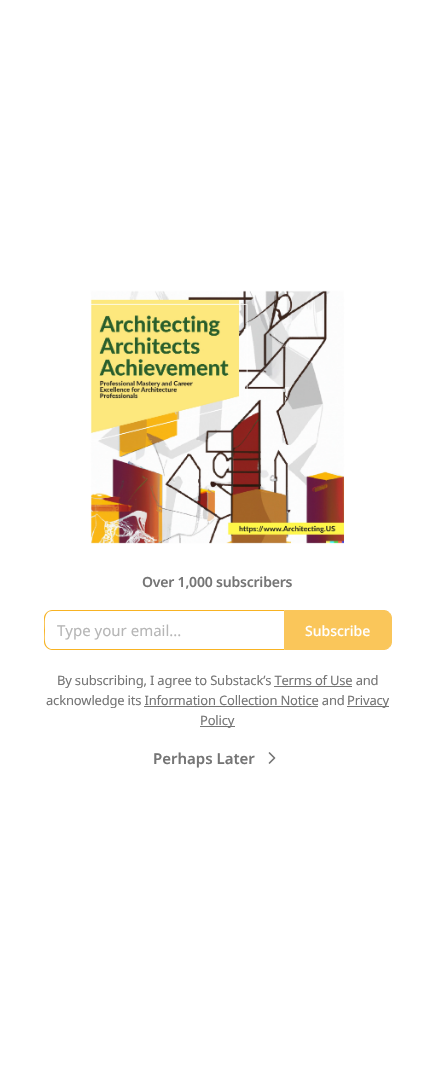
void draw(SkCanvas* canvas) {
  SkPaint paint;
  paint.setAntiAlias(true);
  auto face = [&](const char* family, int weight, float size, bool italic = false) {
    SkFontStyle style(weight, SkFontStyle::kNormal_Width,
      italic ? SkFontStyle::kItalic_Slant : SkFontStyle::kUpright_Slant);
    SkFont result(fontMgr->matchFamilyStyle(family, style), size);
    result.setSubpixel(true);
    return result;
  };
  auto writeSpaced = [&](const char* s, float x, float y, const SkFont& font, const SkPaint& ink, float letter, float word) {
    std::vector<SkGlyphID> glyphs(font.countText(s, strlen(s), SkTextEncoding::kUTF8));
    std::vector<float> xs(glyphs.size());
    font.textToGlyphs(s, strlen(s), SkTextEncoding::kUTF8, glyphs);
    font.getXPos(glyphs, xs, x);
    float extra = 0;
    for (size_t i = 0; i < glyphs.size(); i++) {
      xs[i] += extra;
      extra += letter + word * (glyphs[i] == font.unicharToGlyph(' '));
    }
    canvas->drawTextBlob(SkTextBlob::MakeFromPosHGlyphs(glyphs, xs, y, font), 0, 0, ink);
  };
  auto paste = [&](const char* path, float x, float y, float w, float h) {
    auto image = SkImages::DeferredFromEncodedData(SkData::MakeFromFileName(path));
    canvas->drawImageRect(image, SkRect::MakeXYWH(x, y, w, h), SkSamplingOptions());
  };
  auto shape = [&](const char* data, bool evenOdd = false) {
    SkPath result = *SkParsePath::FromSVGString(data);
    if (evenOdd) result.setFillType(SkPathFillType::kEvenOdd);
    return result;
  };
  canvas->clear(0xffffffff);
  paste("img/1.png", 90, 290, 255, 254);
  paint.setColor(0xfff8b323);
  canvas->drawPath(shape("M52 610H284V650H52C48 650 44 646 44 642V618C44 614 48 610 52 610ZM52 611H284V649H51C43 647 45 636 45 630C45 624 43 611 52 611Z", true), paint);
  paint.setColor(0xfffac65a);
  canvas->drawPath(shape("M284.5 610.5H384C388 610.5 391.5 614 391.5 618V642C391.5 646 388 649.5 384 649.5H284.5Z"), paint);
  paint.setStroke(true);
  paint.setStrokeWidth(1);
  canvas->drawPath(shape("M284.5 610.5H384C388 610.5 391.5 614 391.5 618V642C391.5 646 388 649.5 384 649.5H284.5Z"), paint);
  paint.setStroke(false);
  {
    const struct { float x, y, w, h; SkColor color; } items[] = {
      {274, 686, 78, 1, 0xff757575},
      {347, 706, 42, 1, 0xff757575},
      {144, 706, 174, 1, 0xff757575},
      {200, 726, 35, 1, 0xff757575},
    };
    for (auto [x, y, w, h, color] : items) {
      paint.setColor(color);
      canvas->drawRect(SkRect::MakeXYWH(x, y, w, h), paint);
    }
  }
  paint.setStroke(true);
  paint.setStrokeWidth(1.7f);
  paint.setStrokeCap(SkPaint::kRound_Cap);
  paint.setStrokeJoin(SkPaint::kRound_Join);
  canvas->drawPath(shape("M269.5 763L274.5 758L269.5 753"), paint);
  auto f0 = face("Noto Sans", 600, 14);
  paint.setStroke(false);
  writeSpaced("Over 1,000 subscribers", 142, 587, f0, paint, -0.2f, 0);
  auto f1 = face("Noto Sans", 400, 15);
  paint.setColor(0xffb6b6b6);
  canvas->drawString("Type your email...", 57, 636, f1, paint);
  auto f2 = face("Noto Sans", 500, 14);
  paint.setColor(0xffffffff);
  canvas->drawString("Subscribe", 305, 636, f2, paint);
  auto f3 = face("Noto Sans", 400, 13);
  paint.setColor(0xff757575);
  {
    const struct { const char* s; float x, y; } items[] = {
      {"By subscribing, I agree to Substack’s Terms of Use and", 57, 685},
      {"acknowledge its Information Collection Notice and", 46, 705},
      {"Privacy", 347, 705},
      {"Policy", 200, 725},
    };
    for (auto [s, x, y] : items) {
      writeSpaced(s, x, y, f3, paint, -0.2f, 0);
    }
  }
  auto f4 = face("Noto Sans", 600, 15);
  canvas->drawString("Perhaps Later", 153, 764, f4, paint);
}
